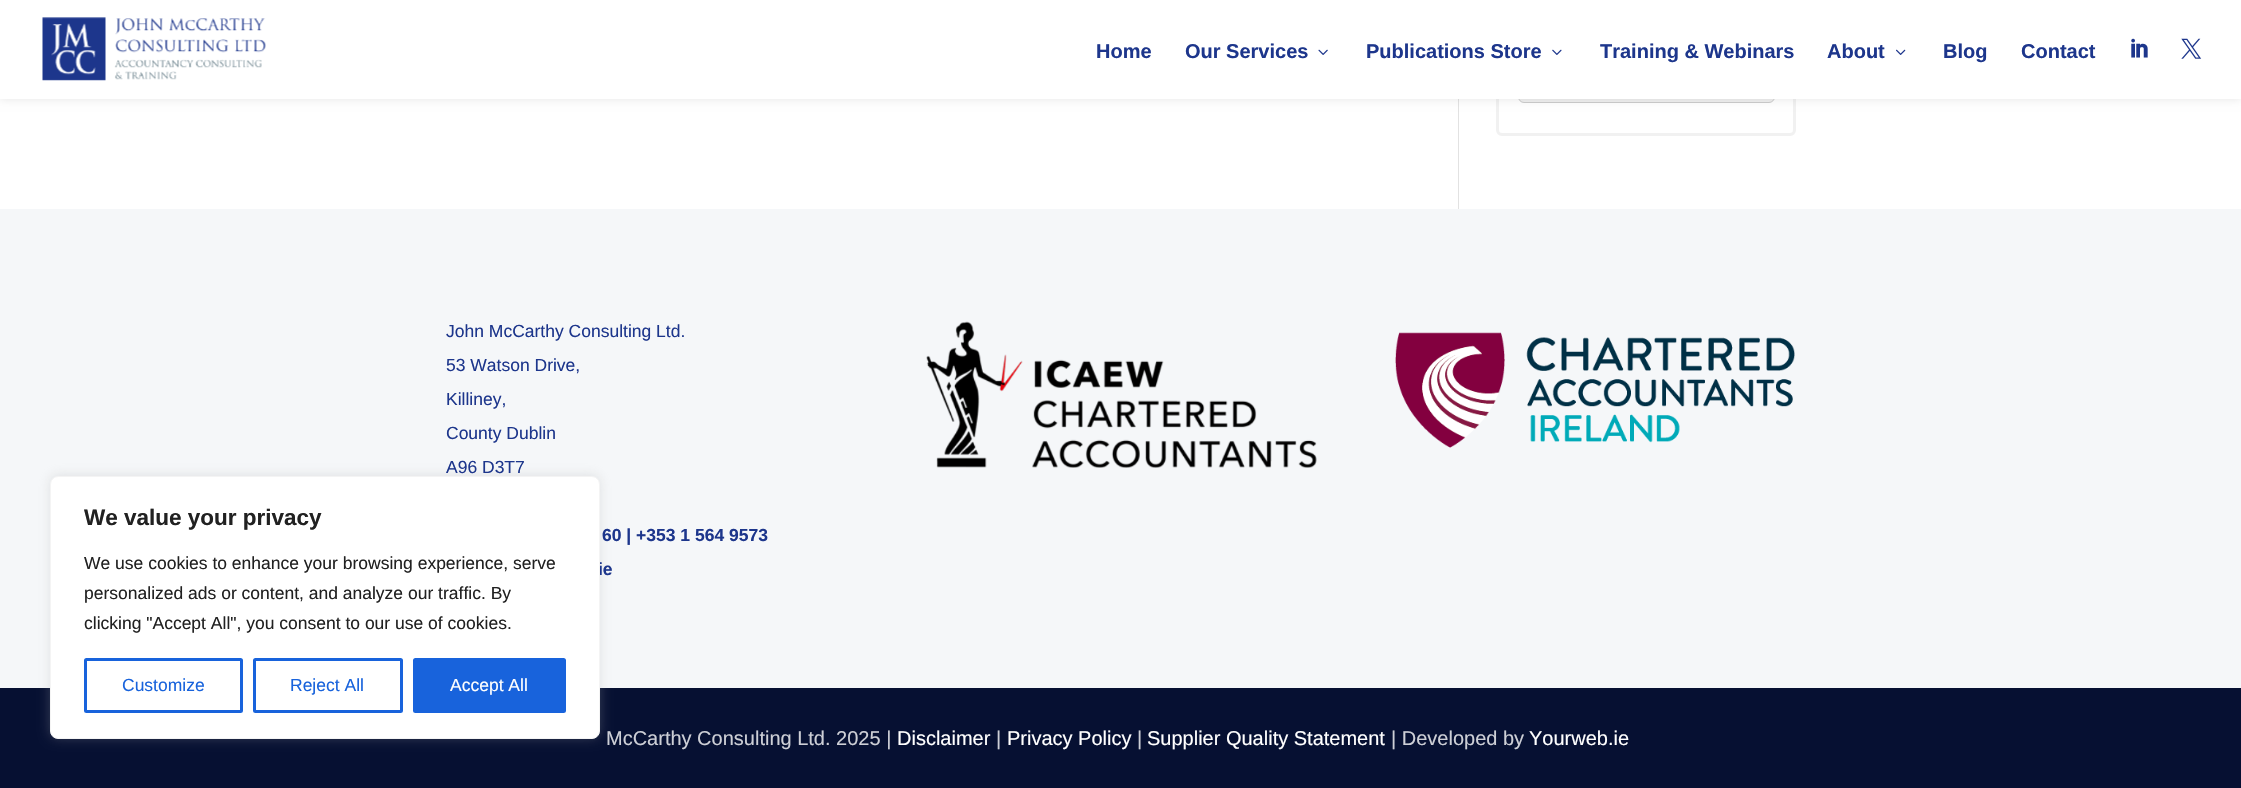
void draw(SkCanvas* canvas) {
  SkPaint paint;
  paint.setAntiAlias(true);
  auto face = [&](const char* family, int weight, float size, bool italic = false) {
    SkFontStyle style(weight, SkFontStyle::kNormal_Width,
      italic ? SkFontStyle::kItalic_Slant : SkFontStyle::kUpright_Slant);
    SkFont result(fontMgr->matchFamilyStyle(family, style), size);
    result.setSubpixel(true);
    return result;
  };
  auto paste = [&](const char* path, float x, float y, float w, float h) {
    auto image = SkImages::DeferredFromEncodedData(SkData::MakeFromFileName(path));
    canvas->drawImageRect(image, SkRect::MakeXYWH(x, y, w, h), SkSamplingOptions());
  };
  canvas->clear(0xffffffff);
  paint.setColor(0xfff5f7f9);
  canvas->drawRect(SkRect::MakeXYWH(0, 209, 2241, 479), paint);
  paint.setColor(0xff061032);
  canvas->drawRect(SkRect::MakeXYWH(0, 688, 2241, 100), paint);
  paint.setColor(0x4dacabab);
  paint.setMaskFilter(SkMaskFilter::MakeBlur(kNormal_SkBlurStyle, 6));
  canvas->drawRoundRect(SkRect::MakeXYWH(50, 475, 550, 263), 8, 8, paint);
  paint.setMaskFilter(nullptr);
  paint.setStroke(true);
  paint.setStrokeWidth(3);
  paint.setColor(0xfff1f1f1);
  canvas->drawRoundRect(SkRect::MakeXYWH(1497.5f, -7.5f, 297, 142), 4.5f, 4.5f, paint);
  paint.setStroke(false);
  paint.setColor(0xffefefef);
  canvas->drawRoundRect(SkRect::MakeXYWH(1518.5f, 46.5f, 256, 56), 5.5f, 5.5f, paint);
  paint.setStroke(true);
  paint.setStrokeWidth(1);
  paint.setColor(0xffcccccc);
  canvas->drawRoundRect(SkRect::MakeXYWH(1518.5f, 46.5f, 256, 56), 5.5f, 5.5f, paint);
  paint.setStroke(false);
  paint.setColor(0xffe2e2e2);
  canvas->drawRect(SkRect::MakeXYWH(1458, 99, 1, 110), paint);
  paint.setColor(0x1a000000);
  paint.setMaskFilter(SkMaskFilter::MakeBlur(kNormal_SkBlurStyle, 4.5f));
  canvas->drawRect(SkRect::MakeXYWH(0, 0, 2241, 99), paint);
  paint.setMaskFilter(nullptr);
  paint.setColor(0xffffffff);
  canvas->drawRect(SkRect::MakeXYWH(0, 0, 2241, 99), paint);
  paste("img/1.png", 42, 17, 224, 64);
  paste("img/2.png", 1318, 49, 10, 6);
  paste("img/3.png", 1552, 49, 10, 6);
  paste("img/4.png", 1896, 49, 10, 6);
  paste("img/5.png", 2131, 38, 17, 20);
  paste("img/6.png", 2181, 38, 21, 21);
  paste("img/7.png", 926, 321, 391, 147);
  paste("img/8.png", 1395, 332, 400, 116);
  auto f0 = face("Liberation Sans", 700, 20);
  paint.setColor(0xff1d368c);
  {
    const struct { const char* s; float x, y; } items[] = {
      {"Home", 1096, 58},
      {"Our Services", 1185, 58},
      {"Publications Store", 1366, 58},
      {"Training & Webinars", 1600, 58},
      {"About", 1827, 58},
      {"Blog", 1943, 58},
      {"Contact", 2021, 58},
    };
    for (auto [s, x, y] : items) {
      canvas->drawString(s, x, y, f0, paint);
    }
  }
  auto f1 = face("Liberation Sans", 400, 17.5f);
  {
    const struct { const char* s; float x, y; } items[] = {
      {"John McCarthy Consulting Ltd.", 446, 337},
      {"53 Watson Drive,", 446, 371},
      {"Killiney,", 446, 405},
      {"County Dublin", 446, 439},
      {"A96 D3T7", 446, 473},
    };
    for (auto [s, x, y] : items) {
      canvas->drawString(s, x, y, f1, paint);
    }
  }
  auto f2 = face("Liberation Sans", 700, 17.5f);
  canvas->drawString("60 | +353 1 564 9573", 602, 541, f2, paint);
  canvas->drawString("ie", 598, 575, f2, paint);
  paint.setColor(0xffffffff);
  canvas->drawRoundRect(SkRect::MakeXYWH(50.5f, 476.5f, 549, 262), 7.5f, 7.5f, paint);
  paint.setStroke(true);
  paint.setColor(0xfff4f4f4);
  canvas->drawRoundRect(SkRect::MakeXYWH(50.5f, 476.5f, 549, 262), 7.5f, 7.5f, paint);
  paint.setStroke(false);
  paint.setColor(0xff1863dc);
  canvas->drawRoundRect(SkRect::MakeXYWH(414.5f, 659.5f, 150, 52), 1, 1, paint);
  paint.setStroke(true);
  paint.setStrokeWidth(3);
  canvas->drawRoundRect(SkRect::MakeXYWH(414.5f, 659.5f, 150, 52), 1, 1, paint);
  paint.setStroke(false);
  paint.setColor(0xffffffff);
  canvas->drawString("Accept All", 450, 691, f1, paint);
  paint.setStroke(true);
  paint.setColor(0xff1863dc);
  canvas->drawRoundRect(SkRect::MakeXYWH(254.5f, 659.5f, 147, 52), 1, 1, paint);
  paint.setStroke(false);
  canvas->drawString("Reject All", 290, 691, f1, paint);
  paint.setStroke(true);
  canvas->drawRoundRect(SkRect::MakeXYWH(85.5f, 659.5f, 156, 52), 1, 1, paint);
  paint.setStroke(false);
  canvas->drawString("Customize", 122, 691, f1, paint);
  paint.setColor(0xff212121);
  {
    const struct { const char* s; float x, y; } items[] = {
      {"clicking \"Accept All\", you consent to our use of cookies.", 84, 629},
      {"personalized ads or content, and analyze our traffic. By", 84, 599},
      {"We use cookies to enhance your browsing experience, serve", 84, 569},
    };
    for (auto [s, x, y] : items) {
      canvas->drawString(s, x, y, f1, paint);
    }
  }
  auto f3 = face("Liberation Sans", 700, 22.5f);
  canvas->drawString("We value your privacy", 84, 525, f3, paint);
  auto f4 = face("Liberation Sans", 400, 20);
  paint.setColor(0xffcdcfd6);
  canvas->drawString("McCarthy Consulting Ltd. 2025 |", 606, 745, f4, paint);
  paint.setColor(0xffffffff);
  canvas->drawString("Disclaimer", 897, 745, f4, paint);
  paint.setColor(0xffcdcfd6);
  canvas->drawString("|", 996, 745, f4, paint);
  paint.setColor(0xffffffff);
  canvas->drawString("Privacy Policy", 1007, 745, f4, paint);
  paint.setColor(0xffcdcfd6);
  canvas->drawString("|", 1137, 745, f4, paint);
  paint.setColor(0xffffffff);
  canvas->drawString("Supplier Quality Statement", 1147, 745, f4, paint);
  paint.setColor(0xffcdcfd6);
  canvas->drawString("| Developed by", 1391, 745, f4, paint);
  paint.setColor(0xffffffff);
  canvas->drawString("Yourweb.ie", 1529, 745, f4, paint);
}
